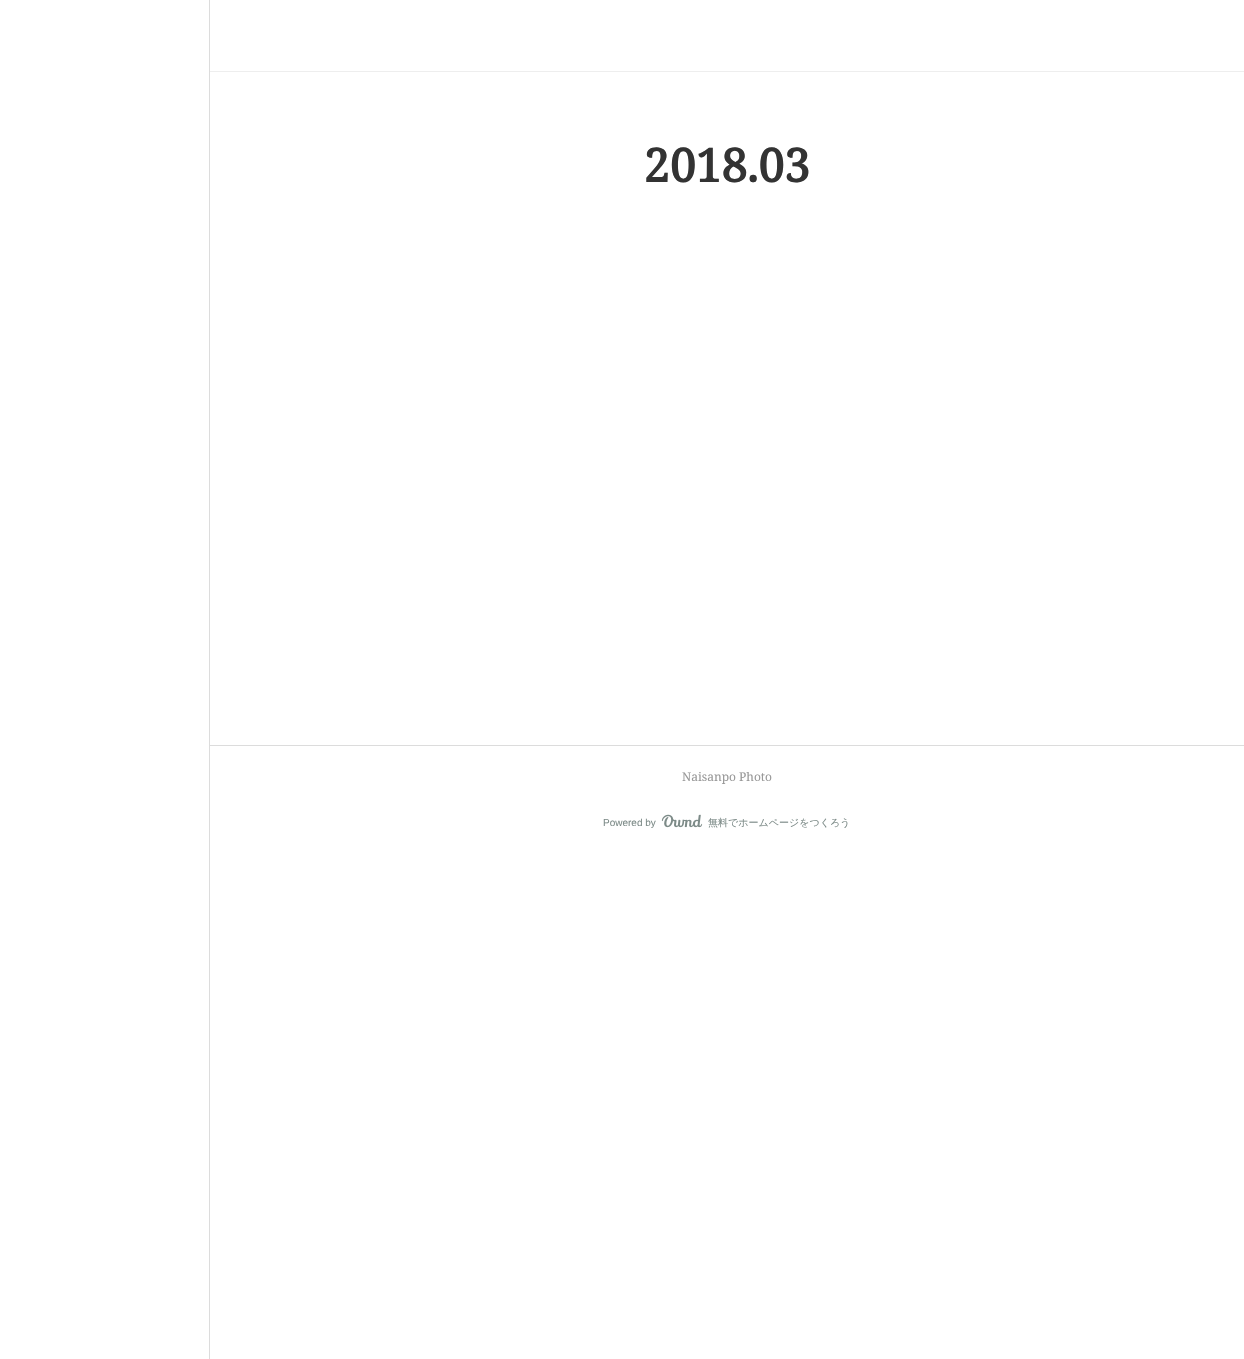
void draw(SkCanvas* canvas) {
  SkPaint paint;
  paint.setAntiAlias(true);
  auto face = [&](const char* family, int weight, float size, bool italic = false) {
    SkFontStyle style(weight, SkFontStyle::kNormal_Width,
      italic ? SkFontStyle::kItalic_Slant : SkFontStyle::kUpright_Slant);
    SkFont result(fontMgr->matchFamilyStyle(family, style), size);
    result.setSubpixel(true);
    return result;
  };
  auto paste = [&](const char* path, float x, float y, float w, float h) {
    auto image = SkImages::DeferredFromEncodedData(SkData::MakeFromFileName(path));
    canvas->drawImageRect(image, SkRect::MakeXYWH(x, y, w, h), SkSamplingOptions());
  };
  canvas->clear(0xffffffff);
  {
    const struct { float x, y, w, h; SkColor color; } items[] = {
      {209, 0, 1, 1359, 0xffdcdcdc},
      {210, 71, 1034, 1, 0xffeeeeee},
      {210, 745, 1034, 1, 0xffdcdcdc},
    };
    for (auto [x, y, w, h, color] : items) {
      paint.setColor(color);
      canvas->drawRect(SkRect::MakeXYWH(x, y, w, h), paint);
    }
  }
  paste("img/1.png", 661, 814, 42, 14);
  auto f0 = face("Noto Serif", 700, 46);
  paint.setColor(0xff333333);
  canvas->drawString("2018.03", 644, 182, f0, paint);
  auto f1 = face("Noto Serif", 400, 12);
  paint.setColor(0xff999999);
  canvas->drawString("Naisanpo Photo", 682, 781, f1, paint);
  auto f2 = face("Liberation Sans", 400, 10);
  paint.setColor(0xff7d8b88);
  canvas->drawString("Powered by", 603, 826, f2, paint);
  auto f3 = face("WenQuanYi Zen Hei", 500, 10);
  canvas->drawString("無料でホームページをつくろう", 708, 826, f3, paint);
}
